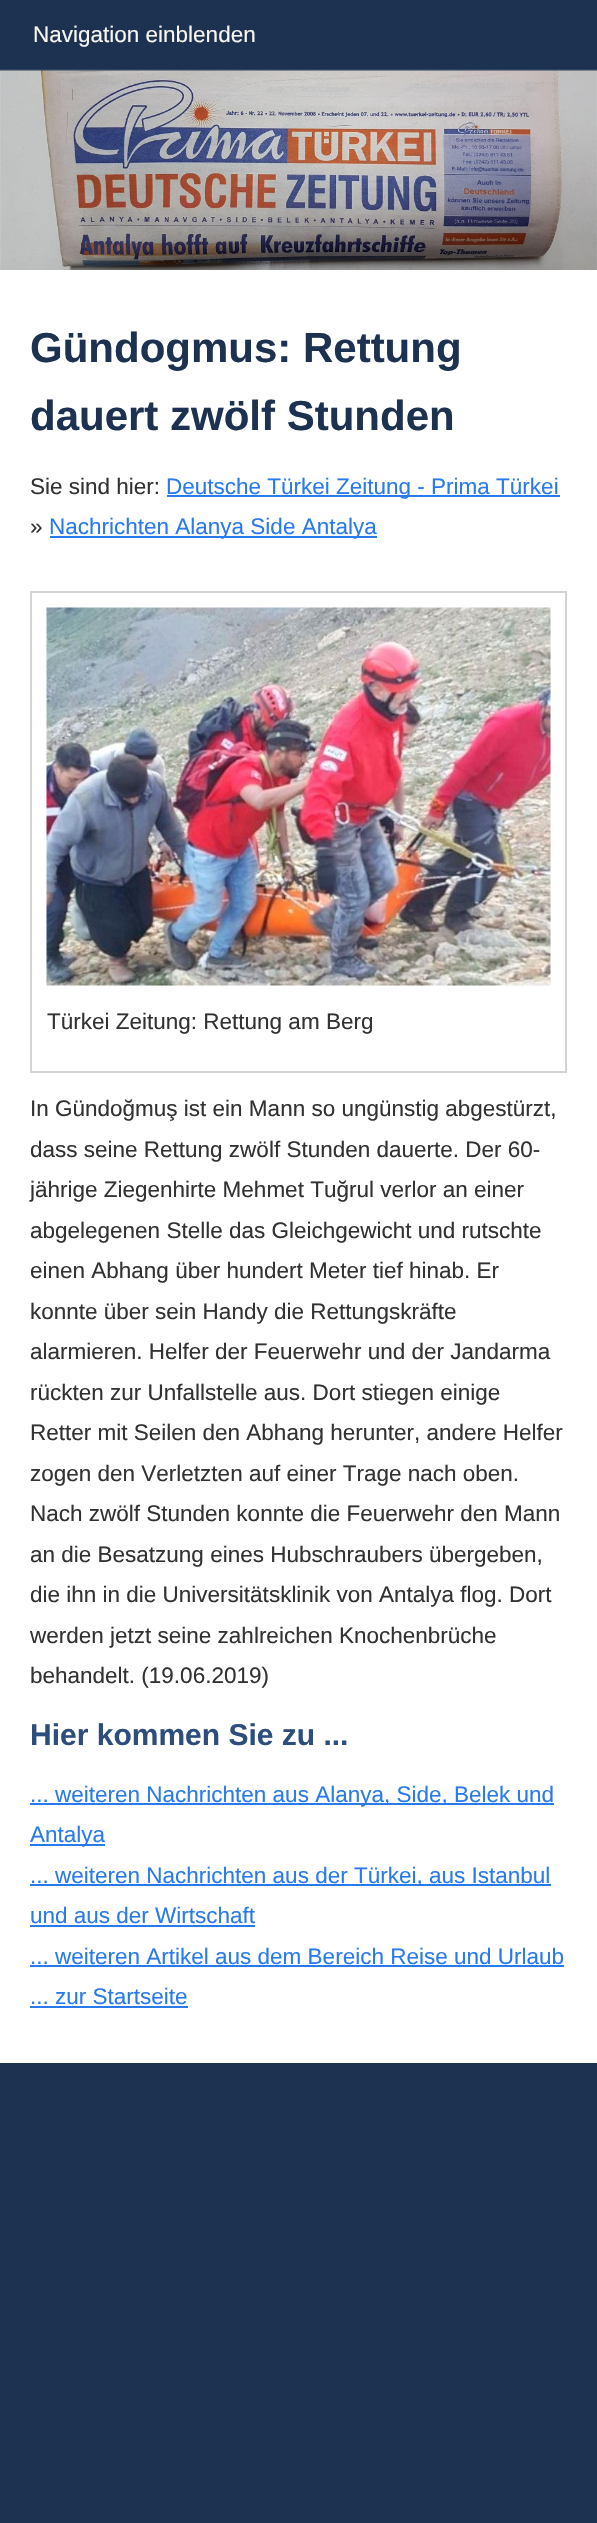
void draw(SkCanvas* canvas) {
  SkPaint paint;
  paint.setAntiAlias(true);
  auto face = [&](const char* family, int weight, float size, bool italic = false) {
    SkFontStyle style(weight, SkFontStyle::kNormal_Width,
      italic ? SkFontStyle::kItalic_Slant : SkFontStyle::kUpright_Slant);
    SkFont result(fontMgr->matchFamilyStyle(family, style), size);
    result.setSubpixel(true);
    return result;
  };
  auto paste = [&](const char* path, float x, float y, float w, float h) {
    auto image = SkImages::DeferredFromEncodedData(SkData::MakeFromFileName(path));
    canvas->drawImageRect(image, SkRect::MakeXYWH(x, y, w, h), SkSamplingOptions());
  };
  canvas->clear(0xff1d3250);
  paint.setColor(0xff2e415d);
  canvas->drawRect(SkRect::MakeXYWH(0, 69, 597, 2), paint);
  paste("img/1.png", 0, 70, 597, 200);
  {
    const struct { float x, y, w, h; SkColor color; } items[] = {
      {0, 270, 597, 1793, 0xffffffff},
      {167, 495, 393, 2, 0xff287aed},
      {50, 536, 327, 2, 0xff287aed},
    };
    for (auto [x, y, w, h, color] : items) {
      paint.setColor(color);
      canvas->drawRect(SkRect::MakeXYWH(x, y, w, h), paint);
    }
  }
  paint.setStroke(true);
  paint.setStrokeWidth(2);
  paint.setColor(0xffd3d3d3);
  canvas->drawRect(SkRect::MakeXYWH(31, 592, 535, 480), paint);
  paste("img/2.png", 46, 607, 505, 379);
  paint.setStroke(false);
  {
    const struct { float x, y, w, h; SkColor color; } items[] = {
      {30, 1803, 524, 2, 0xff287aed},
      {30, 1844, 75, 2, 0xff287aed},
      {30, 1884, 521, 2, 0xff287aed},
      {30, 1925, 225, 2, 0xff287aed},
      {30, 1965, 534, 2, 0xff287aed},
      {30, 2006, 158, 2, 0xff287aed},
    };
    for (auto [x, y, w, h, color] : items) {
      paint.setColor(color);
      canvas->drawRect(SkRect::MakeXYWH(x, y, w, h), paint);
    }
  }
  auto f0 = face("Liberation Sans", 400, 22.5f);
  paint.setColor(0xfff7f6f2);
  canvas->drawString("Navigation einblenden", 33, 42, f0, paint);
  auto f1 = face("Liberation Sans", 700, 42);
  paint.setColor(0xff1d3250);
  canvas->drawString("Gündogmus: Rettung", 30, 362, f1, paint);
  canvas->drawString("dauert zwölf Stunden", 30, 430, f1, paint);
  paint.setColor(0xff323232);
  canvas->drawString("Sie sind hier:", 30, 494, f0, paint);
  paint.setColor(0xff287aed);
  canvas->drawString("Deutsche Türkei Zeitung - Prima Türkei", 166, 494, f0, paint);
  paint.setColor(0xff323232);
  canvas->drawString("»", 30, 534, f0, paint);
  paint.setColor(0xff287aed);
  canvas->drawString("Nachrichten Alanya Side Antalya", 49, 534, f0, paint);
  paint.setColor(0xff323232);
  {
    const struct { const char* s; float x, y; } items[] = {
      {"Türkei Zeitung: Rettung am Berg", 47, 1029},
      {"In Gündoğmuş ist ein Mann so ungünstig abgestürzt,", 30, 1116},
      {"dass seine Rettung zwölf Stunden dauerte. Der 60-", 30, 1157},
      {"jährige Ziegenhirte Mehmet Tuğrul verlor an einer", 30, 1197},
      {"abgelegenen Stelle das Gleichgewicht und rutschte", 30, 1238},
      {"einen Abhang über hundert Meter tief hinab. Er", 30, 1278},
      {"konnte über sein Handy die Rettungskräfte", 30, 1319},
      {"alarmieren. Helfer der Feuerwehr und der Jandarma", 30, 1359},
      {"rückten zur Unfallstelle aus. Dort stiegen einige", 30, 1400},
      {"Retter mit Seilen den Abhang herunter, andere Helfer", 30, 1440},
      {"zogen den Verletzten auf einer Trage nach oben.", 30, 1481},
      {"Nach zwölf Stunden konnte die Feuerwehr den Mann", 30, 1521},
      {"an die Besatzung eines Hubschraubers übergeben,", 30, 1562},
      {"die ihn in die Universitätsklinik von Antalya flog. Dort", 30, 1602},
      {"werden jetzt seine zahlreichen Knochenbrüche", 30, 1643},
      {"behandelt. (19.06.2019)", 30, 1683},
    };
    for (auto [s, x, y] : items) {
      canvas->drawString(s, x, y, f0, paint);
    }
  }
  auto f2 = face("Liberation Sans", 700, 30);
  paint.setColor(0xff2d4e7c);
  canvas->drawString("Hier kommen Sie zu ...", 30, 1745, f2, paint);
  paint.setColor(0xff287aed);
  {
    const struct { const char* s; float x, y; } items[] = {
      {"... weiteren Nachrichten aus Alanya, Side, Belek und", 30, 1802},
      {"Antalya", 30, 1842},
      {"... weiteren Nachrichten aus der Türkei, aus Istanbul", 30, 1883},
      {"und aus der Wirtschaft", 30, 1923},
      {"... weiteren Artikel aus dem Bereich Reise und Urlaub", 30, 1964},
      {"... zur Startseite", 30, 2004},
    };
    for (auto [s, x, y] : items) {
      canvas->drawString(s, x, y, f0, paint);
    }
  }
}
